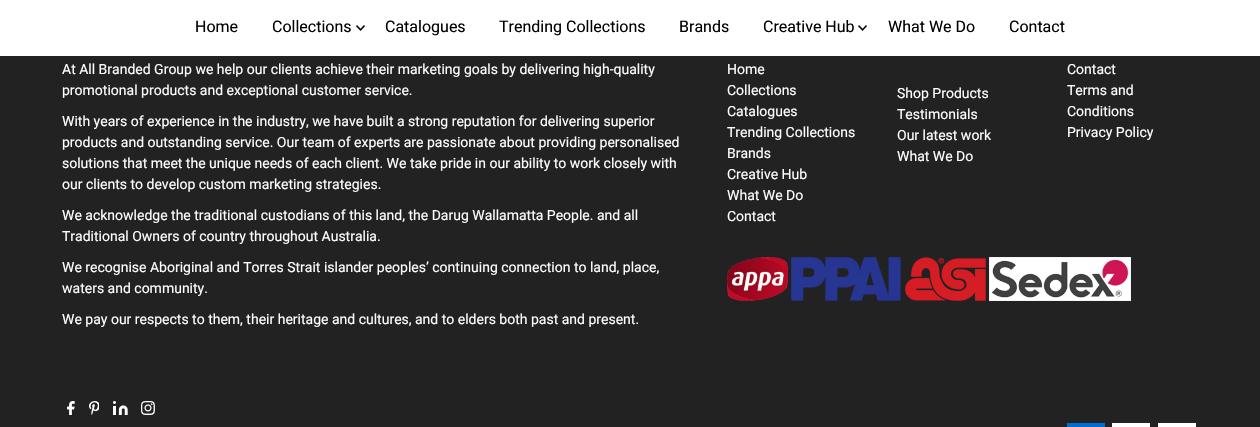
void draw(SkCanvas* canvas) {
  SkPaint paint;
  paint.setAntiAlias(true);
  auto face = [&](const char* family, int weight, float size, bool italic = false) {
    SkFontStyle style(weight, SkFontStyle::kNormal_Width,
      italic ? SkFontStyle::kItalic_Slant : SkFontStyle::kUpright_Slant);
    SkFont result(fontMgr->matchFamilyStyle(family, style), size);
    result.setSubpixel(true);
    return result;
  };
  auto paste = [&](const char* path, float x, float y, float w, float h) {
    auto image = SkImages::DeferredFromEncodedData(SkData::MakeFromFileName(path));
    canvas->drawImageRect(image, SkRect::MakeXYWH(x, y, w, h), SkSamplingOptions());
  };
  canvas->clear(0xff222222);
  paint.setColor(0xffffffff);
  canvas->drawRect(SkRect::MakeXYWH(0, 0, 1260, 56), paint);
  paste("img/1.png", 356, 25, 9, 6);
  paste("img/1.png", 858, 25, 9, 6);
  paste("img/2.png", 727, 257, 61, 44);
  paste("img/3.png", 791, 257, 110, 44);
  paste("img/4.png", 905, 257, 81, 44);
  paste("img/5.png", 989, 257, 142, 44);
  paste("img/6.png", 67, 401, 8, 14);
  paste("img/7.png", 89, 401, 10, 14);
  paste("img/8.png", 113, 401, 15, 14);
  paste("img/9.png", 141, 401, 14, 14);
  {
    const struct { float x, y, w, h; SkColor color; } items[] = {
      {1067, 423, 38, 4, 0xff006fcf},
      {1112, 423, 38, 4, 0xffffffff},
      {1158, 423, 38, 4, 0xffffffff},
    };
    for (auto [x, y, w, h, color] : items) {
      paint.setColor(color);
      canvas->drawRect(SkRect::MakeXYWH(x, y, w, h), paint);
    }
  }
  auto f0 = face("Roboto", 400, 16);
  paint.setColor(0xff000000);
  {
    const struct { const char* s; float x, y; } items[] = {
      {"Home", 195, 32},
      {"Collections", 272, 32},
      {"Catalogues", 385, 32},
      {"Trending Collections", 499, 32},
      {"Brands", 679, 32},
      {"Creative Hub", 763, 32},
      {"What We Do", 888, 32},
      {"Contact", 1009, 32},
    };
    for (auto [s, x, y] : items) {
      canvas->drawString(s, x, y, f0, paint);
    }
  }
  auto f1 = face("Roboto", 400, 14);
  paint.setColor(0xffffffff);
  {
    const struct { const char* s; float x, y; } items[] = {
      {"At All Branded Group we help our clients achieve their marketing goals by delivering high-quality", 62, 74},
      {"promotional products and exceptional customer service.", 62, 95},
      {"With years of experience in the industry, we have built a strong reputation for delivering superior", 62, 126},
      {"products and outstanding service. Our team of experts are passionate about providing personalised", 62, 147},
      {"solutions that meet the unique needs of each client. We take pride in our ability to work closely with", 62, 168},
      {"our clients to develop custom marketing strategies.", 62, 189},
      {"We acknowledge the traditional custodians of this land, the Darug Wallamatta People. and all", 62, 220},
      {"Traditional Owners of country throughout Australia.", 62, 241},
      {"We recognise Aboriginal and Torres Strait islander peoples’ continuing connection to land, place,", 62, 272},
      {"waters and community.", 62, 293},
      {"We pay our respects to them, their heritage and cultures, and to elders both past and present.", 62, 324},
      {"Home", 727, 74},
      {"Collections", 727, 95},
      {"Catalogues", 727, 116},
      {"Trending Collections", 727, 137},
      {"Brands", 727, 158},
      {"Creative Hub", 727, 179},
      {"What We Do", 727, 200},
      {"Contact", 727, 221},
      {"Shop Products", 897, 98},
      {"Testimonials", 897, 119},
      {"Our latest work", 897, 140},
      {"What We Do", 897, 161},
      {"Contact", 1067, 74},
      {"Terms and", 1067, 95},
      {"Conditions", 1067, 116},
      {"Privacy Policy", 1067, 137},
    };
    for (auto [s, x, y] : items) {
      canvas->drawString(s, x, y, f1, paint);
    }
  }
}
